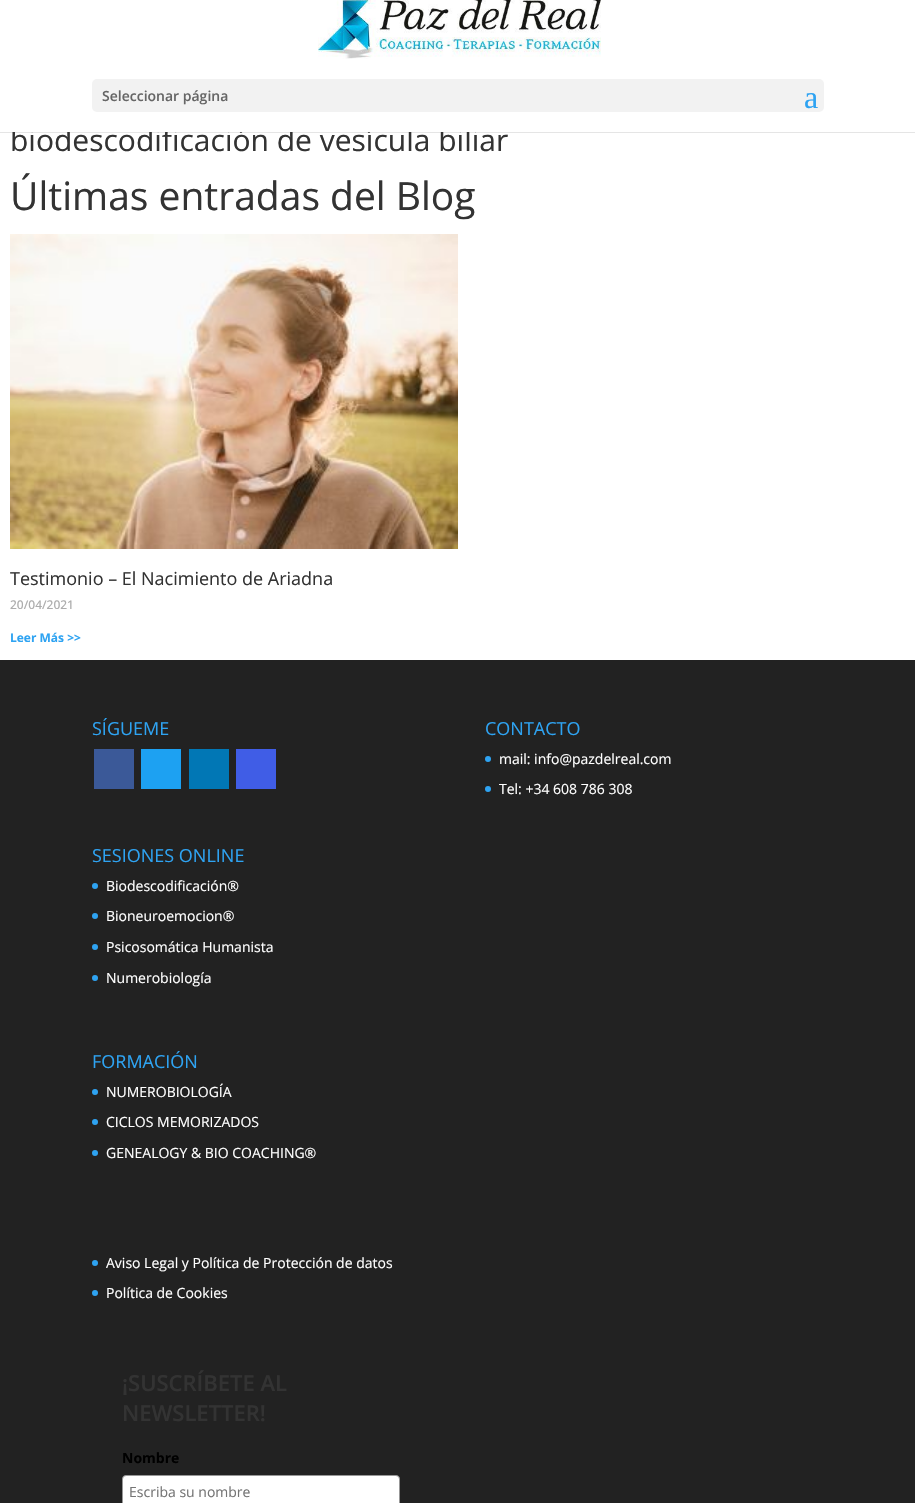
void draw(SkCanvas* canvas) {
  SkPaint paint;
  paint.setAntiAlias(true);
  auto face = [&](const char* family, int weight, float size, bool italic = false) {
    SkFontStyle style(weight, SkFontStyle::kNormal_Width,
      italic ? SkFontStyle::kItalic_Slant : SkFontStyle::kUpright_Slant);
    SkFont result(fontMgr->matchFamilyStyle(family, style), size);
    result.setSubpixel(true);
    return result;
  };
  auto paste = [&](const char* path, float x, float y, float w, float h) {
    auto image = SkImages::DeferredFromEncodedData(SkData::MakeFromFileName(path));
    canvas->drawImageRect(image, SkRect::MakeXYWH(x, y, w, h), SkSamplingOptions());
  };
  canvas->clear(0xffffffff);
  paint.setColor(0x1a000000);
  canvas->drawRect(SkRect::MakeXYWH(0, 132, 915, 1), paint);
  paste("img/1.png", 318, 0, 283, 59);
  paint.setColor(0xfff2f2f2);
  canvas->drawRoundRect(SkRect::MakeXYWH(92, 79, 732, 33), 5, 5, paint);
  paste("img/2.png", 10, 234, 448, 315);
  {
    const struct { float x, y, w, h; SkColor color; } items[] = {
      {0, 660, 915, 843, 0xff222222},
      {94, 749, 40, 40, 0xff3b5998},
      {141, 749, 40, 40, 0xff1da1f2},
      {189, 749, 40, 40, 0xff0177b5},
      {236, 749, 40, 40, 0xff405de6},
    };
    for (auto [x, y, w, h, color] : items) {
      paint.setColor(color);
      canvas->drawRect(SkRect::MakeXYWH(x, y, w, h), paint);
    }
  }
  paint.setColor(0xff2ea3f2);
  canvas->drawCircle(95, 886, 3, paint);
  canvas->drawCircle(95, 916, 3, paint);
  canvas->drawCircle(95, 947, 3, paint);
  canvas->drawCircle(95, 978, 3, paint);
  canvas->drawCircle(95, 1092, 3, paint);
  canvas->drawCircle(95, 1122, 3, paint);
  canvas->drawCircle(95, 1153, 3, paint);
  canvas->drawCircle(488, 759, 3, paint);
  canvas->drawCircle(488, 789, 3, paint);
  canvas->drawCircle(95, 1263, 3, paint);
  canvas->drawCircle(95, 1293, 3, paint);
  paint.setColor(0xffffffff);
  canvas->drawRoundRect(SkRect::MakeXYWH(122.5f, 1475.5f, 277, 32), 3.5f, 3.5f, paint);
  paint.setStroke(true);
  paint.setStrokeWidth(1);
  paint.setColor(0xff979797);
  canvas->drawRoundRect(SkRect::MakeXYWH(122.5f, 1475.5f, 277, 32), 3.5f, 3.5f, paint);
  auto f0 = face("Open Sans", 600, 14);
  paint.setStroke(false);
  paint.setColor(0xff666666);
  canvas->drawString("Seleccionar página", 102, 101, f0, paint);
  auto f1 = face("Liberation Serif", 400, 32);
  paint.setColor(0xff2ea3f2);
  canvas->drawString("a", 804, 108, f1, paint);
  auto f2 = face("Open Sans", 400, 30);
  paint.setColor(0xff333333);
  canvas->drawString("biodescodificación de vesícula biliar", 10, 151, f2, paint);
  paint.setColor(0xffffffff);
  canvas->drawRect(SkRect::MakeXYWH(12, 128, 465, 4), paint);
  auto f3 = face("Open Sans", 400, 39);
  paint.setColor(0xff333333);
  canvas->drawString("Últimas entradas del Blog", 10, 210, f3, paint);
  auto f4 = face("Open Sans", 400, 18);
  canvas->drawString("Testimonio – El Nacimiento de Ariadna", 10, 585, f4, paint);
  auto f5 = face("Open Sans", 500, 12);
  paint.setColor(0xffadadad);
  canvas->drawString("20/04/2021", 10, 609, f5, paint);
  auto f6 = face("Open Sans", 700, 12);
  paint.setColor(0xff2ea3f2);
  canvas->drawString("Leer Más >>", 10, 642, f6, paint);
  canvas->drawString("SÍGUEME", 92, 735, f4, paint);
  canvas->drawString("SESIONES ONLINE", 92, 862, f4, paint);
  auto f7 = face("Open Sans", 400, 14);
  paint.setColor(0xffffffff);
  {
    const struct { const char* s; float x, y; } items[] = {
      {"Biodescodificación®", 106, 891},
      {"Bioneuroemocion®", 106, 921},
      {"Psicosomática Humanista", 106, 952},
      {"Numerobiología", 106, 983},
    };
    for (auto [s, x, y] : items) {
      canvas->drawString(s, x, y, f7, paint);
    }
  }
  paint.setColor(0xff2ea3f2);
  canvas->drawString("FORMACIÓN", 92, 1068, f4, paint);
  paint.setColor(0xffffffff);
  {
    const struct { const char* s; float x, y; } items[] = {
      {"NUMEROBIOLOGÍA", 106, 1097},
      {"CICLOS MEMORIZADOS", 106, 1127},
      {"GENEALOGY & BIO COACHING®", 106, 1158},
    };
    for (auto [s, x, y] : items) {
      canvas->drawString(s, x, y, f7, paint);
    }
  }
  paint.setColor(0xff2ea3f2);
  canvas->drawString("CONTACTO", 485, 735, f4, paint);
  paint.setColor(0xffffffff);
  {
    const struct { const char* s; float x, y; } items[] = {
      {"mail: info@pazdelreal.com", 499, 764},
      {"Tel: +34 608 786 308", 499, 794},
      {"Aviso Legal y Política de Protección de datos", 106, 1268},
      {"Política de Cookies", 106, 1298},
    };
    for (auto [s, x, y] : items) {
      canvas->drawString(s, x, y, f7, paint);
    }
  }
  auto f8 = face("Open Sans", 600, 22);
  paint.setColor(0xff333333);
  canvas->drawString("¡SUSCRÍBETE AL", 122, 1391, f8, paint);
  canvas->drawString("NEWSLETTER!", 122, 1421, f8, paint);
  auto f9 = face("Open Sans", 700, 14);
  paint.setColor(0xff000000);
  canvas->drawString("Nombre", 122, 1463, f9, paint);
  paint.setColor(0xff757575);
  canvas->drawString("Escriba su nombre", 129, 1497, f7, paint);
}
